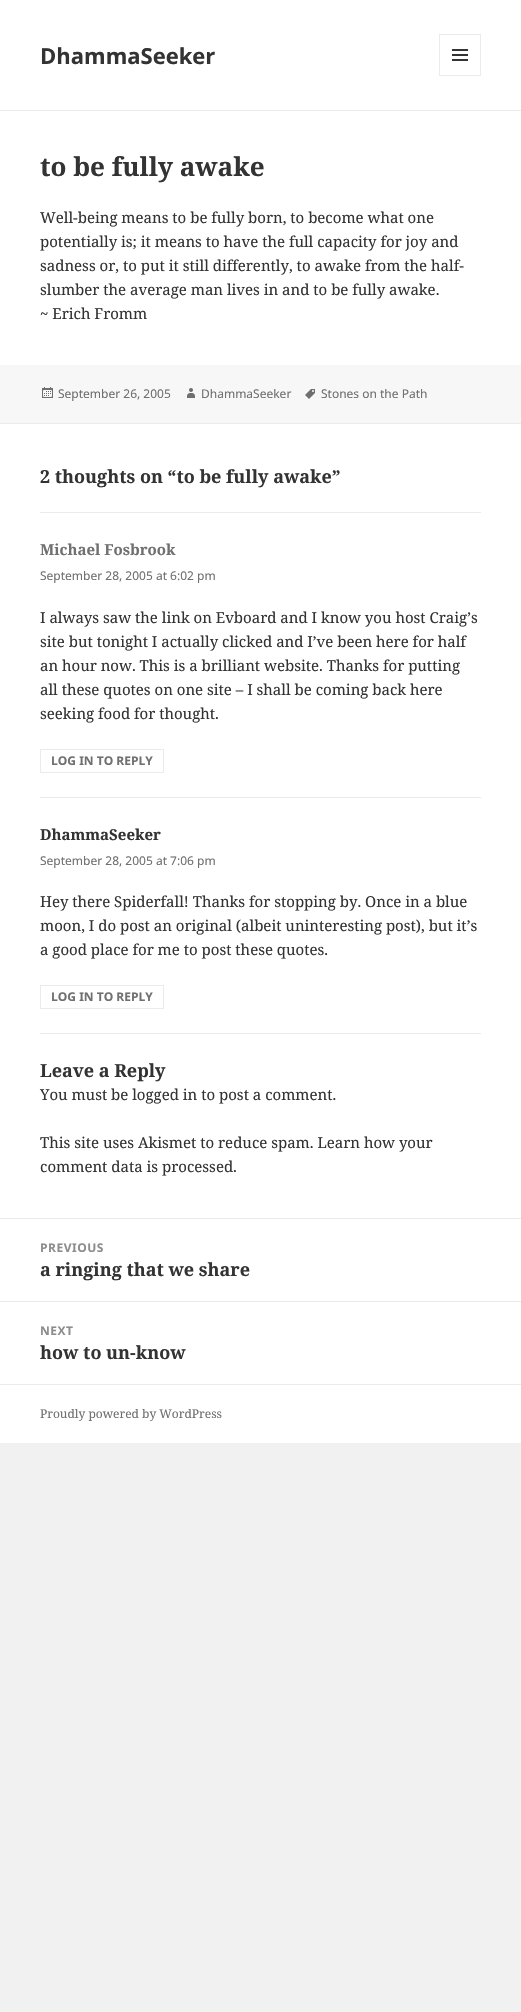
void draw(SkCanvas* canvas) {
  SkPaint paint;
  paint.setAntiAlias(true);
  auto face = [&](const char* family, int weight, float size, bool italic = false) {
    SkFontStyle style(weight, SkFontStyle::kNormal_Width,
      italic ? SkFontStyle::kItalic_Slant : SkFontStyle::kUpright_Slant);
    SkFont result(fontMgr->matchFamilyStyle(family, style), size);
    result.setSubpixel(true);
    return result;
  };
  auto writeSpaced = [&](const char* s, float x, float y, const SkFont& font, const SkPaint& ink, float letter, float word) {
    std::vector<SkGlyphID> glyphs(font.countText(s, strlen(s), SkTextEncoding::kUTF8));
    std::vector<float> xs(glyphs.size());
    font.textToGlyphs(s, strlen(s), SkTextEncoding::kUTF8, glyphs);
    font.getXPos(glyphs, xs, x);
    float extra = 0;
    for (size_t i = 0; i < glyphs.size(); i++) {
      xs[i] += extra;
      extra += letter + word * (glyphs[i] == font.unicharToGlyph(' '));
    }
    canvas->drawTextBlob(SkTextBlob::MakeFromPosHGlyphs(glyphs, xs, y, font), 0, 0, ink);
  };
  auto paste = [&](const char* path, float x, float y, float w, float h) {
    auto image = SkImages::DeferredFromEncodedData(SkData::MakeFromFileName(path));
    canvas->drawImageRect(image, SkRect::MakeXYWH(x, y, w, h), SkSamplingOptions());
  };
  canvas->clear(0xfff1f1f1);
  paint.setColor(0xffffffff);
  canvas->drawRect(SkRect::MakeXYWH(0, 0, 521, 110), paint);
  paint.setColor(0xffebebeb);
  canvas->drawRect(SkRect::MakeXYWH(0, 110, 521, 1), paint);
  paint.setStroke(true);
  paint.setStrokeWidth(1);
  canvas->drawRect(SkRect::MakeXYWH(439.5f, 34.5f, 41, 41), paint);
  paste("img/1.png", 452, 49, 16, 12);
  paint.setStroke(false);
  paint.setColor(0xffffffff);
  canvas->drawRect(SkRect::MakeXYWH(0, 111, 521, 254), paint);
  paint.setColor(0xfff7f7f7);
  canvas->drawRect(SkRect::MakeXYWH(0, 365, 521, 58), paint);
  paste("img/2.png", 42, 387, 11, 11);
  paste("img/3.png", 187, 388, 8, 10);
  paste("img/4.png", 305, 389, 10, 10);
  {
    const struct { float x, y, w, h; SkColor color; } items[] = {
      {0, 424, 521, 794, 0xffffffff},
      {0, 423, 521, 1, 0xffebebeb},
      {40, 512, 441, 1, 0xffebebeb},
    };
    for (auto [x, y, w, h, color] : items) {
      paint.setColor(color);
      canvas->drawRect(SkRect::MakeXYWH(x, y, w, h), paint);
    }
  }
  paint.setStroke(true);
  canvas->drawRect(SkRect::MakeXYWH(40.5f, 749.5f, 123, 23), paint);
  paint.setStroke(false);
  canvas->drawRect(SkRect::MakeXYWH(40, 797, 441, 1), paint);
  paint.setStroke(true);
  canvas->drawRect(SkRect::MakeXYWH(40.5f, 985.5f, 123, 23), paint);
  paint.setStroke(false);
  {
    const struct { float x, y, w, h; SkColor color; } items[] = {
      {40, 1033, 441, 1, 0xffebebeb},
      {0, 1219, 521, 165, 0xffffffff},
      {0, 1218, 521, 1, 0xffebebeb},
      {0, 1301, 521, 1, 0xffebebeb},
      {0, 1385, 521, 58, 0xffffffff},
      {0, 1384, 521, 1, 0xffebebeb},
    };
    for (auto [x, y, w, h, color] : items) {
      paint.setColor(color);
      canvas->drawRect(SkRect::MakeXYWH(x, y, w, h), paint);
    }
  }
  auto f0 = face("Noto Sans", 700, 22);
  paint.setColor(0xff333333);
  canvas->drawString("DhammaSeeker", 40, 64, f0, paint);
  auto f1 = face("Noto Serif", 700, 26);
  canvas->drawString("to be fully awake", 40, 176, f1, paint);
  auto f2 = face("Noto Serif", 400, 15);
  {
    const struct { const char* s; float x, y; } items[] = {
      {"Well-being means to be fully born, to become what one", 40, 223},
      {"potentially is; it means to have the full capacity for joy and", 40, 247},
      {"sadness or, to put it still differently, to awake from the half-", 40, 271},
      {"slumber the average man lives in and to be fully awake.", 40, 295},
      {"~ Erich Fromm", 40, 319},
    };
    for (auto [s, x, y] : items) {
      canvas->drawString(s, x, y, f2, paint);
    }
  }
  auto f3 = face("Noto Sans", 400, 12);
  paint.setColor(0xff707070);
  {
    const struct { const char* s; float x, y; } items[] = {
      {"September 26, 2005", 58, 398},
      {"DhammaSeeker", 201, 398},
      {"Stones on the Path", 321, 398},
    };
    for (auto [s, x, y] : items) {
      canvas->drawString(s, x, y, f3, paint);
    }
  }
  auto f4 = face("Noto Serif", 700, 18);
  paint.setColor(0xff333333);
  canvas->drawString("2 thoughts on “to be fully awake”", 40, 483, f4, paint);
  auto f5 = face("Noto Serif", 700, 15);
  paint.setColor(0xff707070);
  canvas->drawString("Michael Fosbrook", 40, 555, f5, paint);
  canvas->drawString("September 28, 2005 at 6:02 pm", 40, 580, f3, paint);
  paint.setColor(0xff333333);
  {
    const struct { const char* s; float x, y; } items[] = {
      {"I always saw the link on Evboard and I know you host Craig’s", 40, 623},
      {"site but tonight I actually clicked and I’ve been here for half", 40, 647},
      {"an hour now. This is a brilliant website. Thanks for putting", 40, 671},
      {"all these quotes on one site – I shall be coming back here", 40, 695},
      {"seeking food for thought.", 40, 719},
    };
    for (auto [s, x, y] : items) {
      canvas->drawString(s, x, y, f2, paint);
    }
  }
  auto f6 = face("Noto Sans", 700, 12);
  paint.setColor(0xff707070);
  canvas->drawString("LOG IN TO REPLY", 51, 765, f6, paint);
  paint.setColor(0xff333333);
  canvas->drawString("DhammaSeeker", 40, 840, f5, paint);
  paint.setColor(0xff707070);
  canvas->drawString("September 28, 2005 at 7:06 pm", 40, 865, f3, paint);
  paint.setColor(0xff333333);
  {
    const struct { const char* s; float x, y; } items[] = {
      {"Hey there Spiderfall! Thanks for stopping by. Once in a blue", 40, 907},
      {"moon, I do post an original (albeit uninteresting post), but it’s", 40, 931},
      {"a good place for me to post these quotes.", 40, 955},
    };
    for (auto [s, x, y] : items) {
      canvas->drawString(s, x, y, f2, paint);
    }
  }
  paint.setColor(0xff707070);
  canvas->drawString("LOG IN TO REPLY", 51, 1001, f6, paint);
  paint.setColor(0xff333333);
  canvas->drawString("Leave a Reply", 40, 1077, f4, paint);
  {
    const struct { const char* s; float x, y; } items[] = {
      {"You must be logged in to post a comment.", 40, 1100},
      {"This site uses Akismet to reduce spam. Learn how your", 40, 1148},
      {"comment data is processed.", 40, 1172},
    };
    for (auto [s, x, y] : items) {
      canvas->drawString(s, x, y, f2, paint);
    }
  }
  paint.setColor(0xff8d8d8d);
  writeSpaced("PREVIOUS", 40, 1252, f6, paint, 0.5f, 0);
  paint.setColor(0xff333333);
  canvas->drawString("a ringing that we share", 40, 1276, f4, paint);
  paint.setColor(0xff8d8d8d);
  writeSpaced("NEXT", 40, 1335, f6, paint, 0.5f, 0);
  paint.setColor(0xff333333);
  canvas->drawString("how to un-know", 40, 1359, f4, paint);
  auto f7 = face("Noto Serif", 400, 12);
  paint.setColor(0xff707070);
  canvas->drawString("Proudly powered by WordPress", 40, 1418, f7, paint);
}
